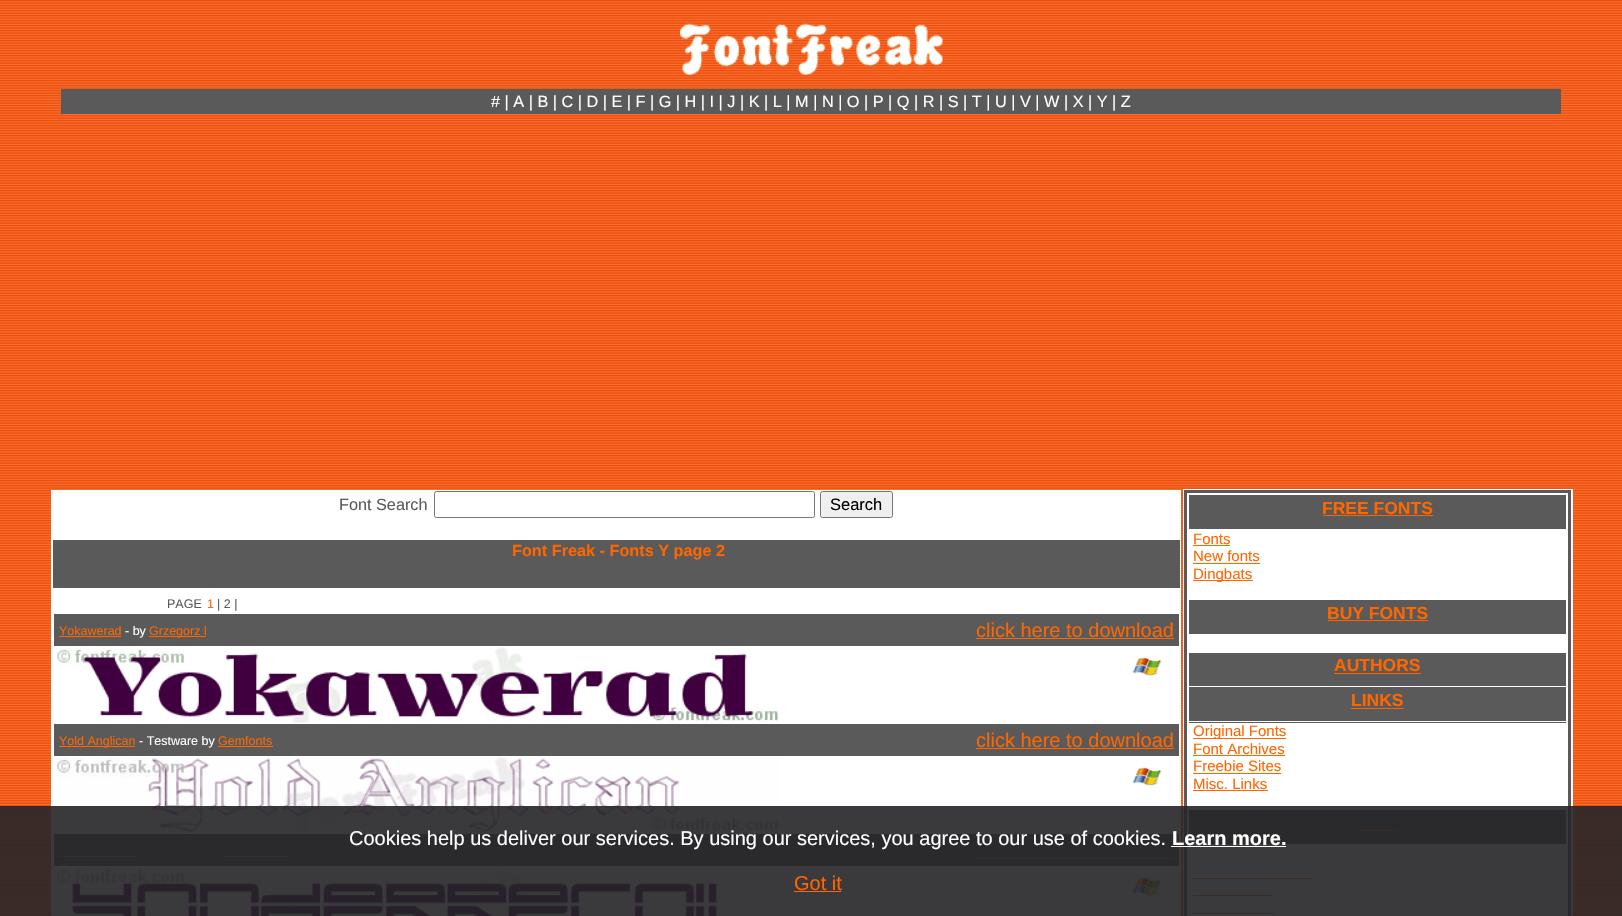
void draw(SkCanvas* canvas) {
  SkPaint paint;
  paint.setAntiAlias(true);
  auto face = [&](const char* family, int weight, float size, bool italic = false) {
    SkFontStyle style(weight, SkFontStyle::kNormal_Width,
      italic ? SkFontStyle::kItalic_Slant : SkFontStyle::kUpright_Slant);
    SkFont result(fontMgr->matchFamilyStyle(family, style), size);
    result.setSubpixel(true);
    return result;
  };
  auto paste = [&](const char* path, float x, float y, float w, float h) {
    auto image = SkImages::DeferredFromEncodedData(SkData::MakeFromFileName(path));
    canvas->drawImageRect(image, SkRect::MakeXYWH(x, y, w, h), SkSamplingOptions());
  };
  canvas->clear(0xffffffff);
  paste("img/1.png", 0, 0, 1622, 916);
  paste("img/2.png", 680, 23, 264, 52);
  paint.setColor(0xff5a5a5a);
  canvas->drawRect(SkRect::MakeXYWH(61, 89, 1500, 25), paint);
  paint.setColor(0xffffffff);
  canvas->drawRect(SkRect::MakeXYWH(51, 490, 1130, 426), paint);
  paint.setStroke(true);
  paint.setStrokeWidth(1);
  paint.setColor(0xff767676);
  canvas->drawRoundRect(SkRect::MakeXYWH(434.5f, 491.5f, 380, 26), 2, 2, paint);
  paint.setStroke(false);
  paint.setColor(0xffefefef);
  canvas->drawRoundRect(SkRect::MakeXYWH(820.5f, 491.5f, 72, 26), 2, 2, paint);
  paint.setStroke(true);
  paint.setColor(0xff767676);
  canvas->drawRoundRect(SkRect::MakeXYWH(820.5f, 491.5f, 72, 26), 2, 2, paint);
  paint.setStroke(false);
  {
    const struct { float x, y, w, h; SkColor color; } items[] = {
      {53, 540, 1127, 48, 0xff5a5a5a},
      {54, 614, 1125, 32, 0xff5a5a5a},
      {59, 636, 62, 1, 0xffff6600},
      {149, 636, 57, 1, 0xffff6600},
      {976, 638, 198, 1, 0xffff6600},
    };
    for (auto [x, y, w, h, color] : items) {
      paint.setColor(color);
      canvas->drawRect(SkRect::MakeXYWH(x, y, w, h), paint);
    }
  }
  paste("img/3.png", 56, 647, 722, 76);
  paste("img/4.png", 1132, 657, 30, 19);
  {
    const struct { float x, y, w, h; SkColor color; } items[] = {
      {54, 724, 1125, 32, 0xff5a5a5a},
      {59, 746, 76, 1, 0xffff6600},
      {218, 746, 55, 1, 0xffff6600},
      {976, 748, 198, 1, 0xffff6600},
    };
    for (auto [x, y, w, h, color] : items) {
      paint.setColor(color);
      canvas->drawRect(SkRect::MakeXYWH(x, y, w, h), paint);
    }
  }
  paste("img/5.png", 55, 757, 725, 76);
  paste("img/6.png", 1132, 767, 30, 19);
  {
    const struct { float x, y, w, h; SkColor color; } items[] = {
      {54, 834, 1125, 32, 0xff5a5a5a},
      {59, 856, 79, 1, 0xffff6600},
      {221, 856, 68, 1, 0xffff6600},
      {976, 858, 198, 1, 0xffff6600},
    };
    for (auto [x, y, w, h, color] : items) {
      paint.setColor(color);
      canvas->drawRect(SkRect::MakeXYWH(x, y, w, h), paint);
    }
  }
  paste("img/7.png", 56, 867, 662, 49);
  paste("img/4.png", 1132, 877, 30, 19);
  paint.setColor(0xffffffff);
  canvas->drawRect(SkRect::MakeXYWH(1183, 489, 390, 427), paint);
  paint.setStroke(true);
  paint.setStrokeWidth(3);
  paint.setColor(0xff5a5a5a);
  canvas->drawRect(SkRect::MakeXYWH(1185.5f, 491.5f, 384, 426), paint);
  paint.setStroke(false);
  {
    const struct { float x, y, w, h; SkColor color; } items[] = {
      {1189, 495, 377, 34, 0xff5a5a5a},
      {1323, 515, 110, 1, 0xffff6200},
      {1193, 545, 37, 1, 0xffff6600},
      {1193, 563, 67, 1, 0xffff6600},
      {1193, 580, 60, 1, 0xffff6600},
      {1189, 600, 377, 34, 0xff5a5a5a},
      {1328, 620, 100, 1, 0xffff6200},
      {1189, 653, 377, 70, 0xff5a5a5a},
      {1189, 686, 377, 1, 0xffffffff},
      {1334, 673, 87, 1, 0xffff6200},
      {1189, 721, 377, 1, 0xffffffff},
      {1351, 708, 53, 1, 0xffff6200},
      {1193, 738, 93, 1, 0xffff6600},
      {1193, 755, 92, 1, 0xffff6600},
      {1193, 773, 88, 1, 0xffff6600},
      {1193, 790, 75, 1, 0xffff6600},
      {1189, 810, 377, 34, 0xff5a5a5a},
      {1359, 830, 37, 1, 0xffff6200},
      {1193, 878, 118, 1, 0xffff6600},
      {1193, 895, 80, 1, 0xffff6600},
      {1193, 913, 81, 1, 0xffff6600},
      {0, 806, 1622, 110, 0xe6252528},
      {1171, 846, 115, 1, 0xffffffff},
      {794, 891, 47, 1, 0xffff6600},
    };
    for (auto [x, y, w, h, color] : items) {
      paint.setColor(color);
      canvas->drawRect(SkRect::MakeXYWH(x, y, w, h), paint);
    }
  }
  auto f0 = face("Liberation Sans", 400, 16.25f);
  paint.setColor(0xffffffff);
  canvas->drawString("# | A | B | C | D | E | F | G | H | I | J | K | L | M | N | O | P | Q | R | S | T | U | V | W | X | Y | Z", 491, 107, f0, paint);
  paint.setColor(0xff5a5a5a);
  canvas->drawString("Font Search", 339, 510, f0, paint);
  auto f1 = face("Liberation Sans", 400, 16.5f);
  paint.setColor(0xff000000);
  canvas->drawString("Search", 830, 510, f1, paint);
  auto f2 = face("Liberation Sans", 700, 16.25f);
  paint.setColor(0xffff6600);
  canvas->drawString("Font Freak - Fonts Y page 2", 512, 556, f2, paint);
  auto f3 = face("Liberation Sans", 400, 12.5f);
  paint.setColor(0xff5a5a5a);
  canvas->drawString("PAGE", 167, 608, f3, paint);
  paint.setColor(0xffff6600);
  canvas->drawString("1", 207, 608, f3, paint);
  paint.setColor(0xff5a5a5a);
  canvas->drawString("| 2 |", 217, 608, f3, paint);
  paint.setColor(0xffff6600);
  canvas->drawString("Yokawerad", 59, 635, f3, paint);
  paint.setColor(0xffffffff);
  canvas->drawString("- by", 125, 635, f3, paint);
  paint.setColor(0xffff6600);
  canvas->drawString("Grzegorz l", 149, 635, f3, paint);
  auto f4 = face("Liberation Sans", 400, 20);
  canvas->drawString("click here to download", 976, 637, f4, paint);
  canvas->drawString("Yold Anglican", 59, 745, f3, paint);
  paint.setColor(0xffffffff);
  canvas->drawString("- Testware by", 139, 745, f3, paint);
  paint.setColor(0xffff6600);
  canvas->drawString("Gemfonts", 218, 745, f3, paint);
  canvas->drawString("click here to download", 976, 747, f4, paint);
  auto f5 = face("Liberation Sans", 700, 17.5f);
  canvas->drawString("FREE FONTS", 1322, 514, f5, paint);
  auto f6 = face("Liberation Sans", 400, 15);
  {
    const struct { const char* s; float x, y; } items[] = {
      {"Fonts", 1193, 544},
      {"New fonts", 1193, 561},
      {"Dingbats", 1193, 579},
    };
    for (auto [s, x, y] : items) {
      canvas->drawString(s, x, y, f6, paint);
    }
  }
  {
    const struct { const char* s; float x, y; } items[] = {
      {"BUY FONTS", 1327, 619},
      {"AUTHORS", 1334, 671},
      {"LINKS", 1351, 706},
    };
    for (auto [s, x, y] : items) {
      canvas->drawString(s, x, y, f5, paint);
    }
  }
  {
    const struct { const char* s; float x, y; } items[] = {
      {"Original Fonts", 1193, 736},
      {"Font Archives", 1193, 754},
      {"Freebie Sites", 1193, 771},
      {"Misc. Links", 1193, 789},
    };
    for (auto [s, x, y] : items) {
      canvas->drawString(s, x, y, f6, paint);
    }
  }
  paint.setColor(0xffffffff);
  canvas->drawString("Cookies help us deliver our services. By using our services, you agree to our use of cookies.", 349, 845, f4, paint);
  auto f7 = face("Liberation Sans", 700, 20);
  canvas->drawString("Learn more.", 1172, 845, f7, paint);
  paint.setColor(0xffff6600);
  canvas->drawString("Got it", 794, 890, f4, paint);
}
